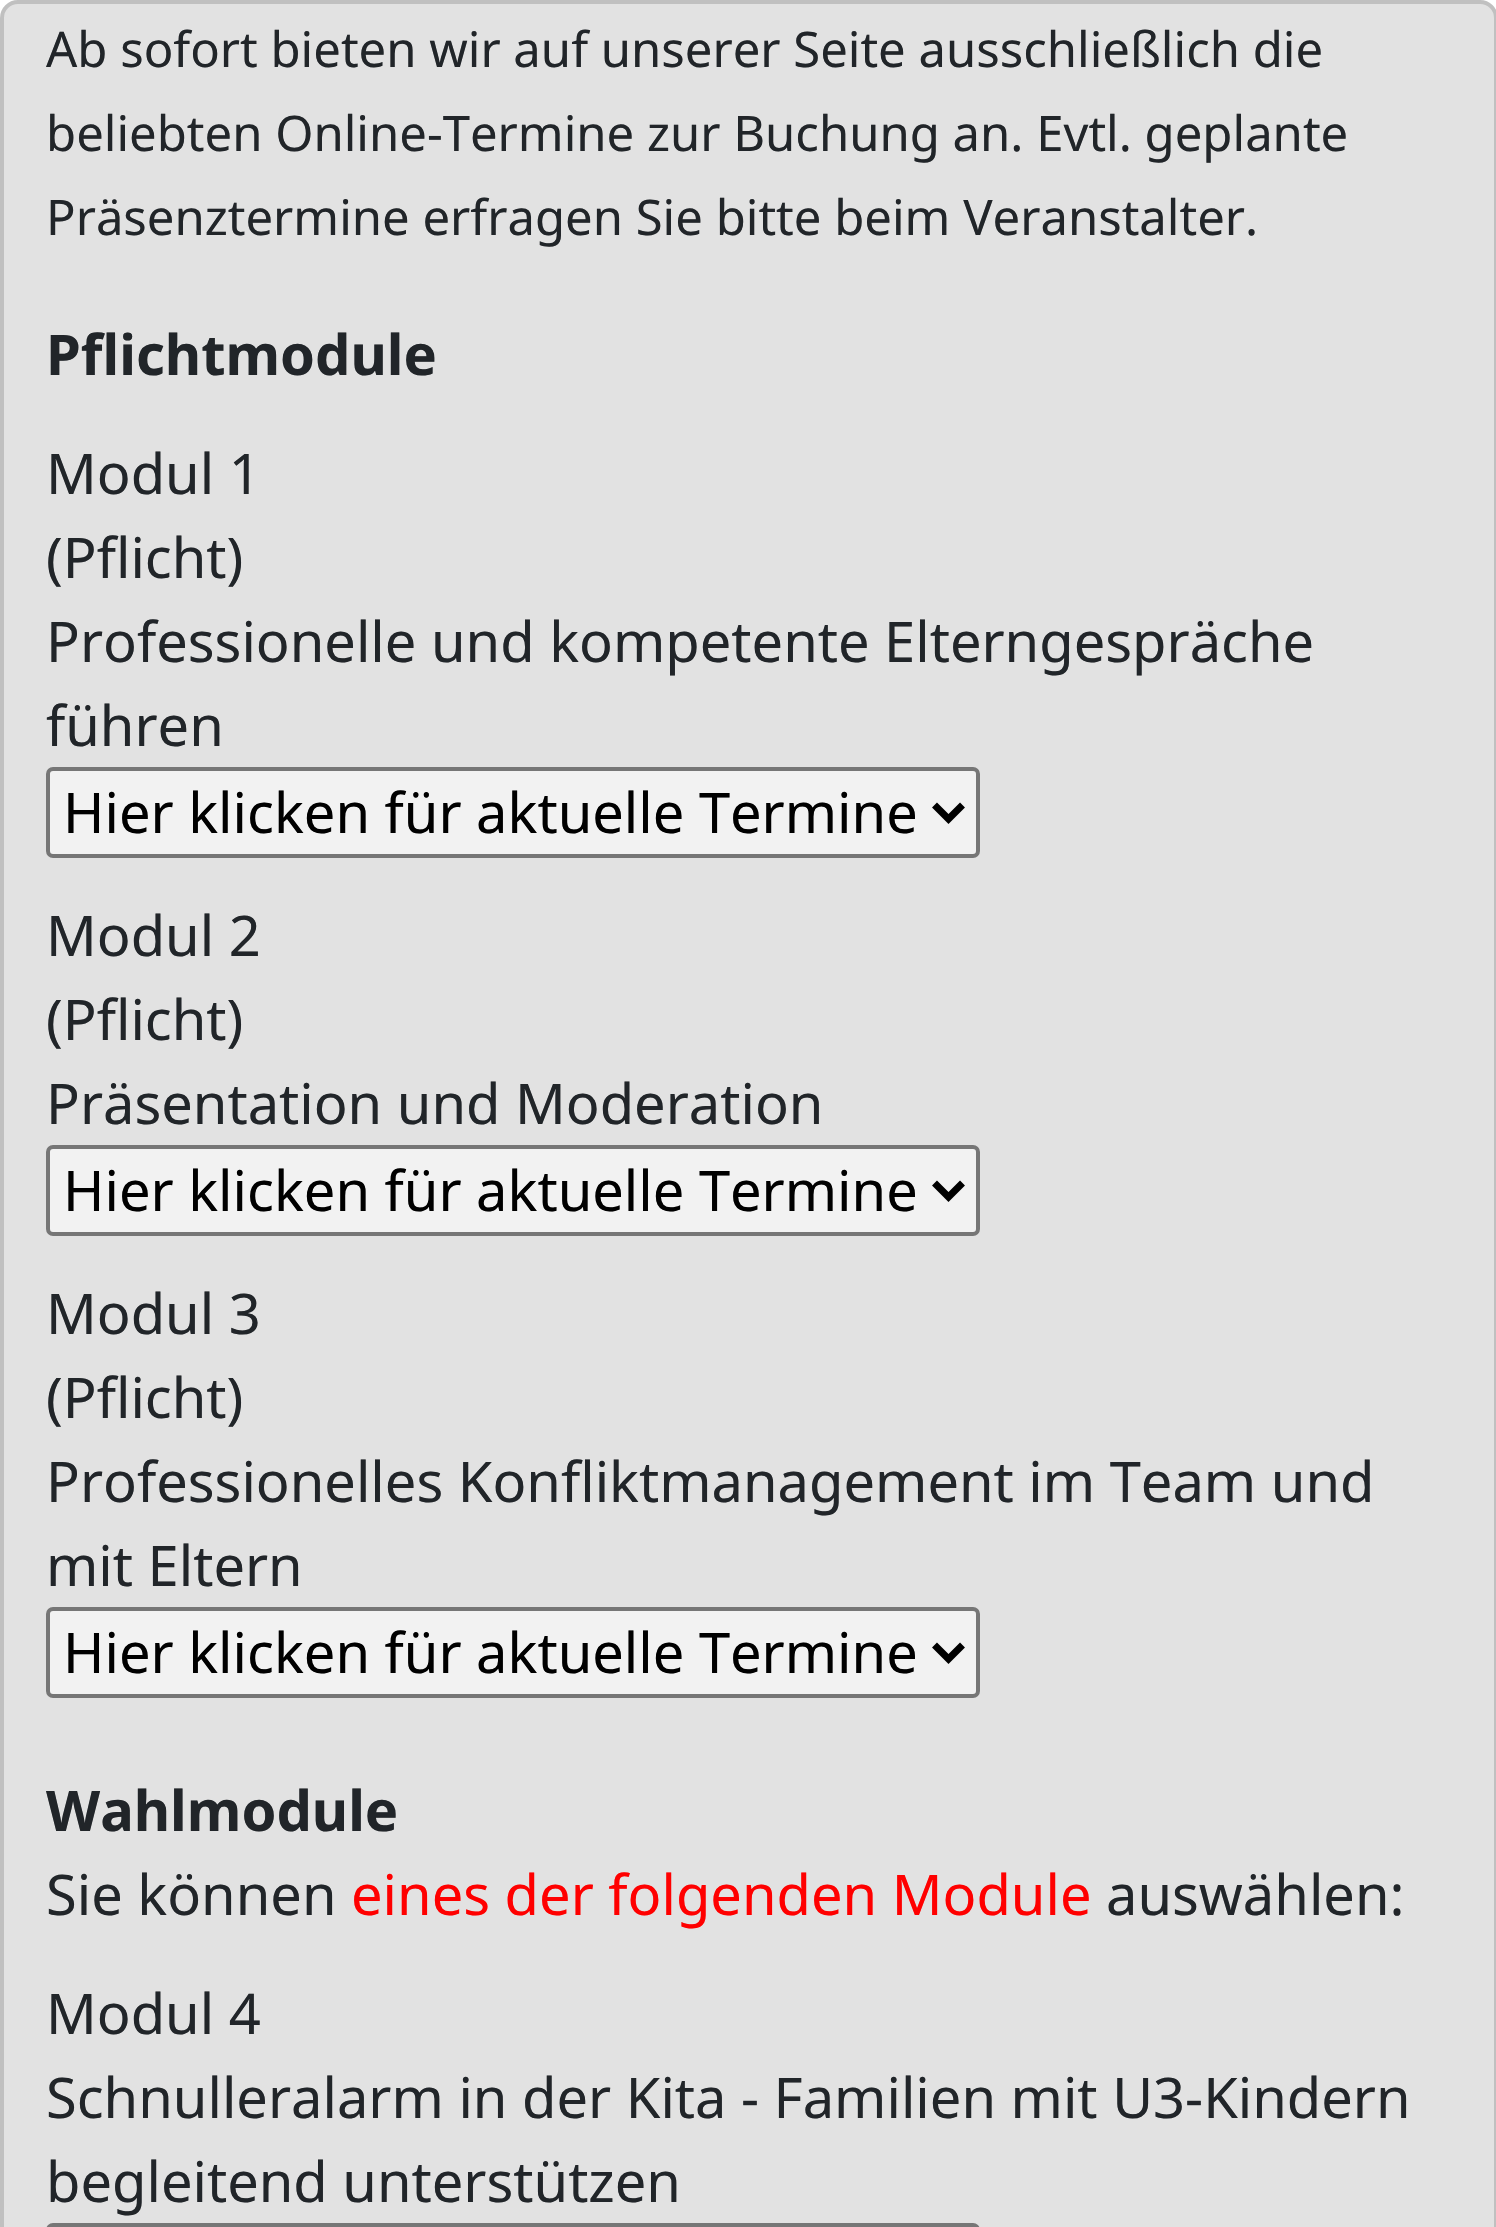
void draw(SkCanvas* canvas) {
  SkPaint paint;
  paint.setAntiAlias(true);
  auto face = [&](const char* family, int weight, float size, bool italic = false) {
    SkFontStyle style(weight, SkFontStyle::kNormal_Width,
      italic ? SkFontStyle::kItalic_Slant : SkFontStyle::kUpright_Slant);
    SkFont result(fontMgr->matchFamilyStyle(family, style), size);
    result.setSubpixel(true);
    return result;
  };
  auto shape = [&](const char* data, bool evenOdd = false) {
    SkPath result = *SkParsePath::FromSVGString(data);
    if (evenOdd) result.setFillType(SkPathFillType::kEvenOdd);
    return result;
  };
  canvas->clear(0xffffffff);
  paint.setColor(0xffe2e2e2);
  canvas->drawRoundRect(SkRect::MakeXYWH(2, 2, 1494, 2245), 16, 16, paint);
  paint.setStroke(true);
  paint.setStrokeWidth(4);
  paint.setColor(0xffc0c0c0);
  canvas->drawRoundRect(SkRect::MakeXYWH(2, 2, 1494, 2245), 16, 16, paint);
  paint.setStroke(false);
  paint.setColor(0xfff2f2f2);
  canvas->drawRoundRect(SkRect::MakeXYWH(48, 769, 930, 87), 5, 5, paint);
  paint.setStroke(true);
  paint.setColor(0xff767676);
  canvas->drawRoundRect(SkRect::MakeXYWH(48, 769, 930, 87), 5, 5, paint);
  paint.setStrokeWidth(7);
  paint.setColor(0xff000000);
  canvas->drawPath(shape("M934.5 805L948.5 819L962.5 805"), paint);
  paint.setStroke(false);
  paint.setColor(0xfff2f2f2);
  canvas->drawRoundRect(SkRect::MakeXYWH(48, 1147, 930, 87), 5, 5, paint);
  paint.setStroke(true);
  paint.setStrokeWidth(4);
  paint.setColor(0xff767676);
  canvas->drawRoundRect(SkRect::MakeXYWH(48, 1147, 930, 87), 5, 5, paint);
  paint.setStrokeWidth(7);
  paint.setColor(0xff000000);
  canvas->drawPath(shape("M934.5 1183L948.5 1197L962.5 1183"), paint);
  paint.setStroke(false);
  paint.setColor(0xfff2f2f2);
  canvas->drawRoundRect(SkRect::MakeXYWH(48, 1609, 930, 87), 5, 5, paint);
  paint.setStroke(true);
  paint.setStrokeWidth(4);
  paint.setColor(0xff767676);
  canvas->drawRoundRect(SkRect::MakeXYWH(48, 1609, 930, 87), 5, 5, paint);
  paint.setStrokeWidth(7);
  paint.setColor(0xff000000);
  canvas->drawPath(shape("M934.5 1645L948.5 1659L962.5 1645"), paint);
  paint.setStrokeWidth(4);
  paint.setColor(0xff767676);
  canvas->drawRoundRect(SkRect::MakeXYWH(48, 2225, 930, 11), 5, 5, paint);
  auto f0 = face("Noto Sans", 400, 49);
  paint.setStroke(false);
  paint.setColor(0xff212529);
  {
    const struct { const char* s; float x, y; } items[] = {
      {"Ab sofort bieten wir auf unserer Seite ausschließlich die", 46, 67},
      {"beliebten Online-Termine zur Buchung an. Evtl. geplante", 46, 151},
      {"Präsenztermine erfragen Sie bitte beim Veranstalter.", 46, 235},
    };
    for (auto [s, x, y] : items) {
      canvas->drawString(s, x, y, f0, paint);
    }
  }
  auto f1 = face("Noto Sans", 700, 56);
  canvas->drawString("Pflichtmodule", 46, 375, f1, paint);
  auto f2 = face("Noto Sans", 400, 56);
  {
    const struct { const char* s; float x, y; } items[] = {
      {"Modul 1", 46, 494},
      {"(Pflicht)", 46, 578},
      {"Professionelle und kompetente Elterngespräche", 46, 662},
      {"führen", 46, 746},
    };
    for (auto [s, x, y] : items) {
      canvas->drawString(s, x, y, f2, paint);
    }
  }
  paint.setColor(0xff000000);
  canvas->drawString("Hier klicken für aktuelle Termine", 63, 833, f2, paint);
  paint.setColor(0xff212529);
  {
    const struct { const char* s; float x, y; } items[] = {
      {"Modul 2", 46, 956},
      {"(Pflicht)", 46, 1040},
      {"Präsentation und Moderation", 46, 1124},
    };
    for (auto [s, x, y] : items) {
      canvas->drawString(s, x, y, f2, paint);
    }
  }
  paint.setColor(0xff000000);
  canvas->drawString("Hier klicken für aktuelle Termine", 63, 1211, f2, paint);
  paint.setColor(0xff212529);
  {
    const struct { const char* s; float x, y; } items[] = {
      {"Modul 3", 46, 1334},
      {"(Pflicht)", 46, 1418},
      {"Professionelles Konfliktmanagement im Team und", 46, 1502},
      {"mit Eltern", 46, 1586},
    };
    for (auto [s, x, y] : items) {
      canvas->drawString(s, x, y, f2, paint);
    }
  }
  paint.setColor(0xff000000);
  canvas->drawString("Hier klicken für aktuelle Termine", 63, 1673, f2, paint);
  paint.setColor(0xff212529);
  canvas->drawString("Wahlmodule", 46, 1831, f1, paint);
  canvas->drawString("Sie können", 46, 1915, f2, paint);
  paint.setColor(0xffff0000);
  canvas->drawString("eines der folgenden Module", 351, 1915, f2, paint);
  paint.setColor(0xff212529);
  {
    const struct { const char* s; float x, y; } items[] = {
      {"auswählen:", 1106, 1915},
      {"Modul 4", 46, 2034},
      {"Schnulleralarm in der Kita - Familien mit U3-Kindern", 46, 2118},
      {"begleitend unterstützen", 46, 2202},
    };
    for (auto [s, x, y] : items) {
      canvas->drawString(s, x, y, f2, paint);
    }
  }
}
